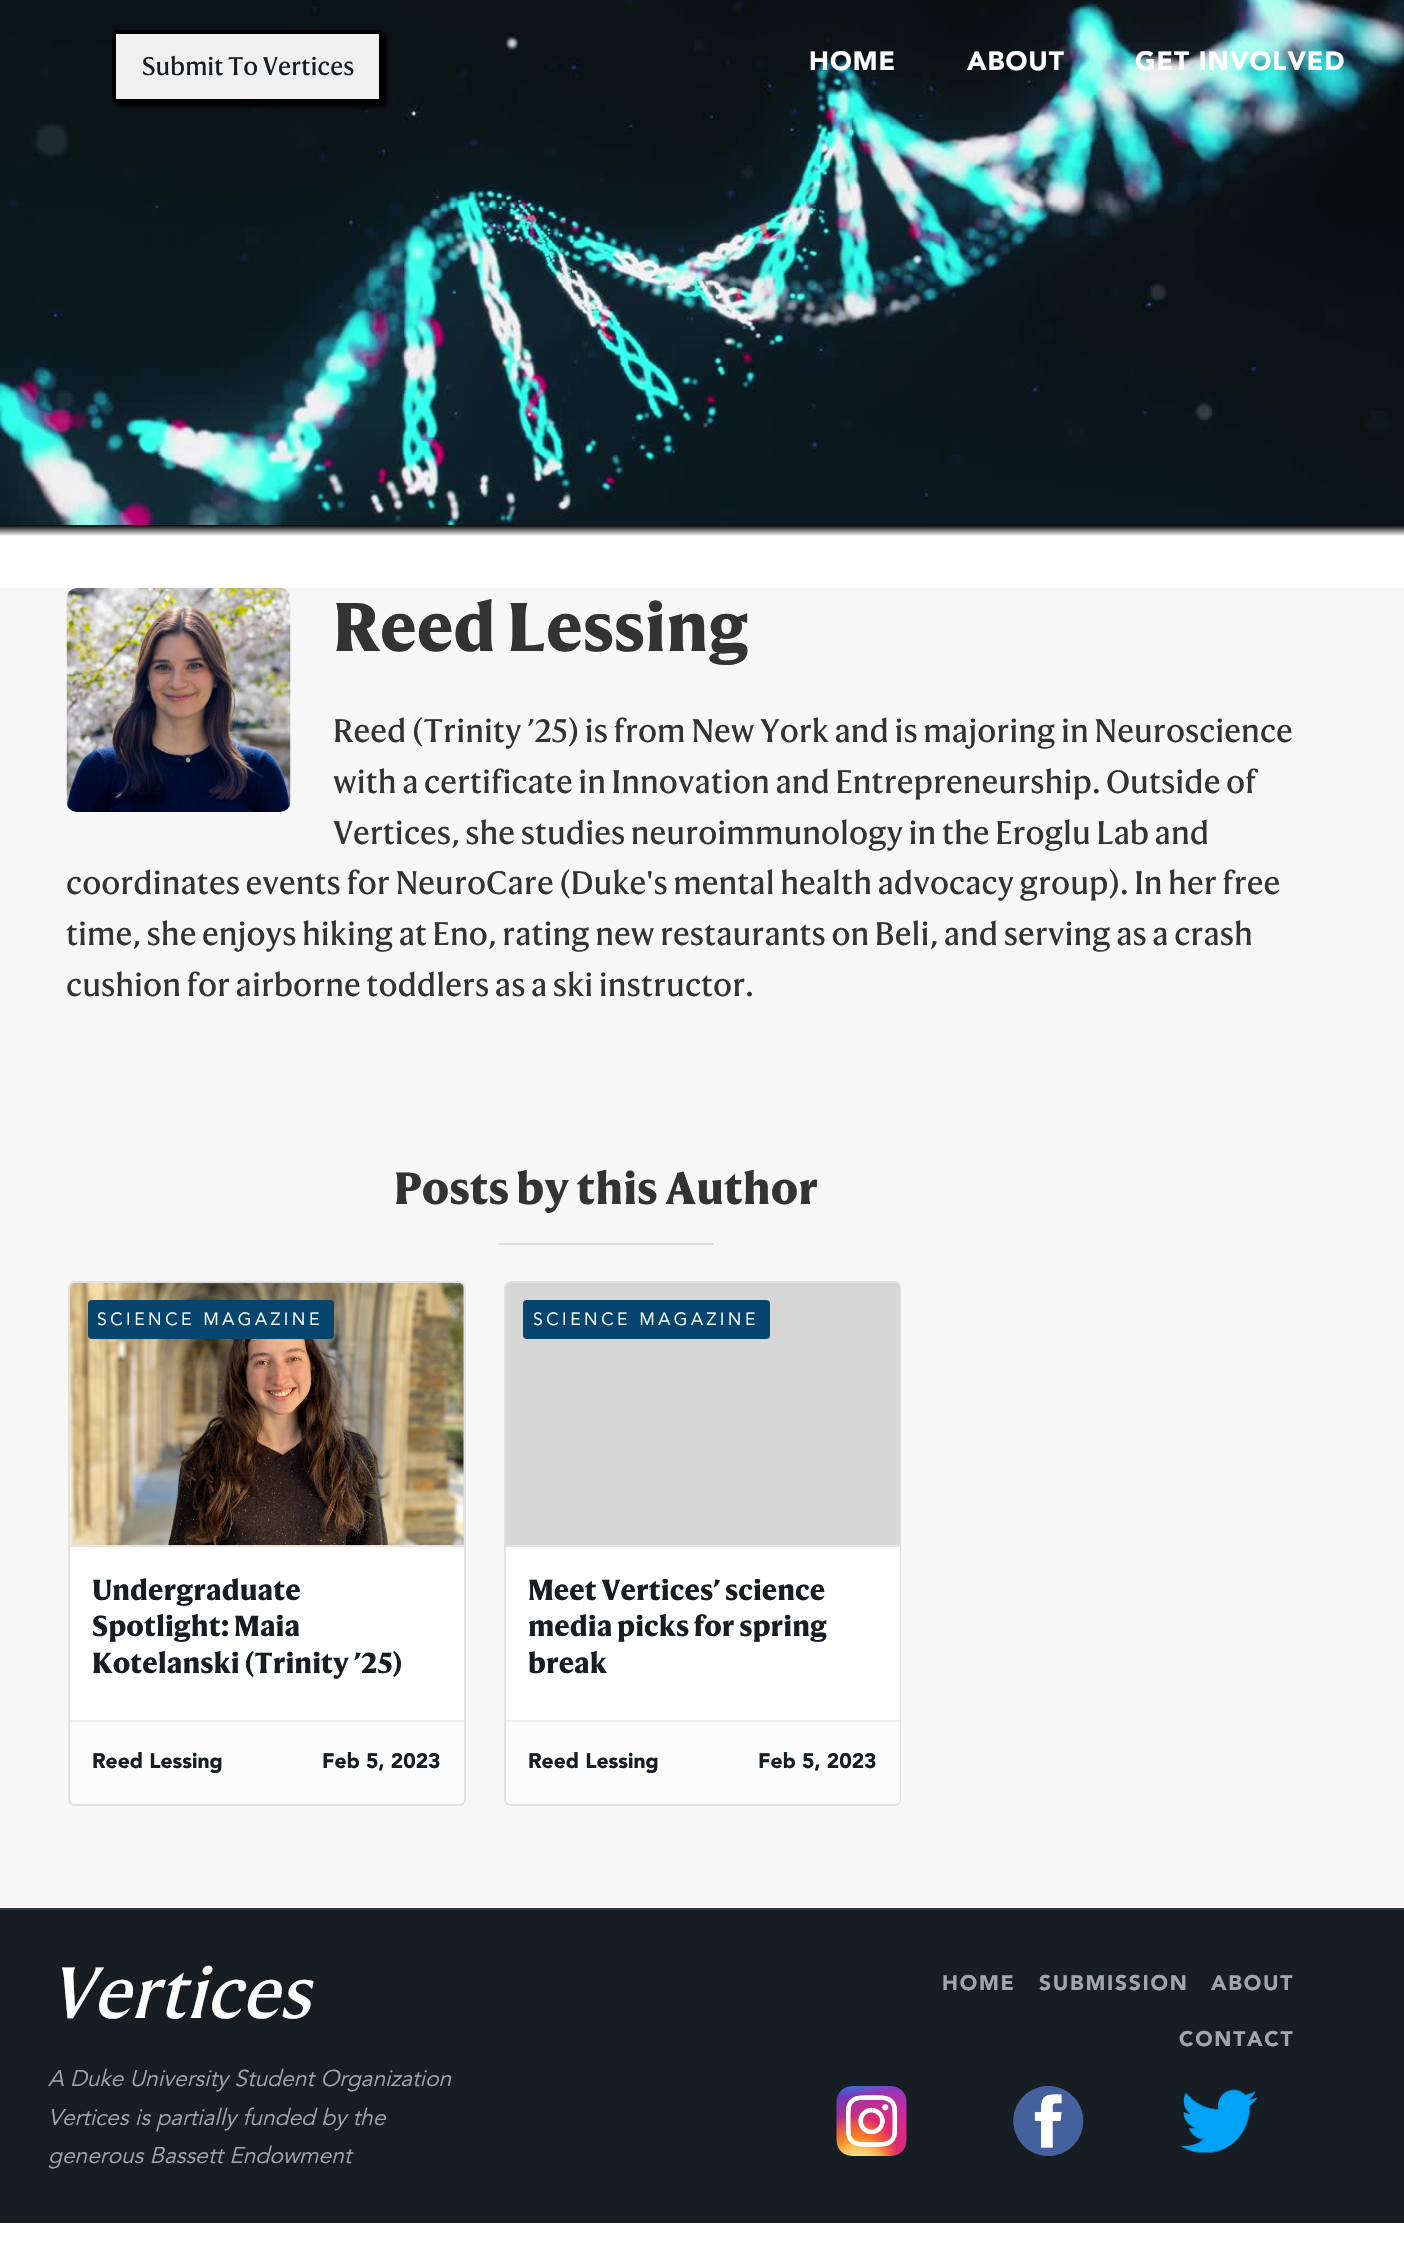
void draw(SkCanvas* canvas) {
  SkPaint paint;
  paint.setAntiAlias(true);
  auto face = [&](const char* family, int weight, float size, bool italic = false) {
    SkFontStyle style(weight, SkFontStyle::kNormal_Width,
      italic ? SkFontStyle::kItalic_Slant : SkFontStyle::kUpright_Slant);
    SkFont result(fontMgr->matchFamilyStyle(family, style), size);
    result.setSubpixel(true);
    return result;
  };
  auto writeSpaced = [&](const char* s, float x, float y, const SkFont& font, const SkPaint& ink, float letter, float word) {
    std::vector<SkGlyphID> glyphs(font.countText(s, strlen(s), SkTextEncoding::kUTF8));
    std::vector<float> xs(glyphs.size());
    font.textToGlyphs(s, strlen(s), SkTextEncoding::kUTF8, glyphs);
    font.getXPos(glyphs, xs, x);
    float extra = 0;
    for (size_t i = 0; i < glyphs.size(); i++) {
      xs[i] += extra;
      extra += letter + word * (glyphs[i] == font.unicharToGlyph(' '));
    }
    canvas->drawTextBlob(SkTextBlob::MakeFromPosHGlyphs(glyphs, xs, y, font), 0, 0, ink);
  };
  auto paste = [&](const char* path, float x, float y, float w, float h) {
    auto image = SkImages::DeferredFromEncodedData(SkData::MakeFromFileName(path));
    canvas->drawImageRect(image, SkRect::MakeXYWH(x, y, w, h), SkSamplingOptions());
  };
  auto shape = [&](const char* data, bool evenOdd = false) {
    SkPath result = *SkParsePath::FromSVGString(data);
    if (evenOdd) result.setFillType(SkPathFillType::kEvenOdd);
    return result;
  };
  canvas->clear(0xffffffff);
  paste("img/1.png", 0, 0, 1404, 525);
  paint.setColor(0xff000000);
  paint.setMaskFilter(SkMaskFilter::MakeBlur(kNormal_SkBlurStyle, 2.5f));
  canvas->drawRoundRect(SkRect::MakeXYWH(116, 33, 271, 74), 4, 4, paint);
  paint.setMaskFilter(nullptr);
  paint.setColor(0xfff0f0f0);
  canvas->drawRoundRect(SkRect::MakeXYWH(114, 32, 267, 69), 2, 2, paint);
  paint.setStroke(true);
  paint.setStrokeWidth(4);
  paint.setColor(0xff000000);
  canvas->drawRoundRect(SkRect::MakeXYWH(114, 32, 267, 69), 2, 2, paint);
  paint.setStroke(false);
  {
    const SkColor colors[] = {0xff000000, 0xffffffff};
    const float stops[] = {0, 1};
    const SkPoint ends[] = {{703, 525}, {703, 536}};
    paint.setShader(SkGradientShader::MakeLinear(ends, colors, stops, 2, SkTileMode::kClamp));
    paint.setAlpha(255);
  }
  canvas->drawRect(SkRect::MakeXYWH(0, 525, 1404, 11), paint);
  paint.setShader(nullptr);
  paint.setColor(0xfff7f7f7);
  canvas->drawRect(SkRect::MakeXYWH(0, 588, 1404, 1320), paint);
  paste("img/2.png", 66, 588, 225, 224);
  paint.setColor(0xffdedede);
  canvas->drawRect(SkRect::MakeXYWH(499, 1243, 215, 2), paint);
  paint.setStroke(true);
  paint.setStrokeWidth(2);
  paint.setColor(0xffe1e1e1);
  canvas->drawRoundRect(SkRect::MakeXYWH(69, 1282, 396, 523), 6, 6, paint);
  paint.setStroke(false);
  paint.setColor(0xffffffff);
  canvas->drawRoundRect(SkRect::MakeXYWH(70, 1283, 394, 521), 5, 5, paint);
  paint.setColor(0xffd6d6d6);
  canvas->drawPath(shape("M75 1283H459C462 1283 464 1285 464 1288V1545H70V1288C70 1285 72 1283 75 1283Z"), paint);
  paste("img/3.png", 70, 1283, 394, 262);
  paint.setColor(0xff06456d);
  canvas->drawRoundRect(SkRect::MakeXYWH(88, 1300, 246, 39), 4, 4, paint);
  paint.setColor(0xffe5e5e5);
  canvas->drawRect(SkRect::MakeXYWH(70, 1545, 394, 2), paint);
  paint.setColor(0xfffcfcfc);
  canvas->drawPath(shape("M70 1720H464V1799C464 1802 462 1804 459 1804H75C72 1804 70 1802 70 1799Z"), paint);
  paint.setColor(0xffefefef);
  canvas->drawRect(SkRect::MakeXYWH(70, 1720, 394, 2), paint);
  paint.setStroke(true);
  paint.setColor(0xffe1e1e1);
  canvas->drawRoundRect(SkRect::MakeXYWH(505, 1282, 395, 523), 6, 6, paint);
  paint.setStroke(false);
  paint.setColor(0xffffffff);
  canvas->drawRoundRect(SkRect::MakeXYWH(506, 1283, 394, 521), 5, 5, paint);
  paint.setColor(0xffd6d6d6);
  canvas->drawPath(shape("M511 1283H895C898 1283 900 1285 900 1288V1545H506V1288C506 1285 508 1283 511 1283Z"), paint);
  paint.setColor(0xff06456d);
  canvas->drawRoundRect(SkRect::MakeXYWH(523, 1300, 247, 39), 4, 4, paint);
  paint.setColor(0xffe5e5e5);
  canvas->drawRect(SkRect::MakeXYWH(506, 1545, 394, 2), paint);
  paint.setColor(0xfffcfcfc);
  canvas->drawPath(shape("M506 1720H900V1799C900 1802 898 1804 895 1804H511C508 1804 506 1802 506 1799Z"), paint);
  {
    const struct { float x, y, w, h; SkColor color; } items[] = {
      {506, 1720, 394, 2, 0xffefefef},
      {0, 1910, 1404, 313, 0xff161e24},
      {0, 1908, 1404, 2, 0xff32393e},
    };
    for (auto [x, y, w, h, color] : items) {
      paint.setColor(color);
      canvas->drawRect(SkRect::MakeXYWH(x, y, w, h), paint);
    }
  }
  paste("img/4.png", 836, 2086, 71, 70);
  paste("img/5.png", 1013, 2086, 71, 70);
  paste("img/6.png", 1180, 2089, 78, 64);
  auto f0 = face("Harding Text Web", 400, 24.5f);
  paint.setColor(0xff161e24);
  canvas->drawString("Submit To Vertices", 142, 75, f0, paint);
  auto f1 = face("Avenir", 900, 26.25f);
  paint.setColor(0xffffffff);
  {
    const struct { const char* s; float x, y; } items[] = {
      {"HOME", 809, 70},
      {"ABOUT", 967, 70},
      {"GET INVOLVED", 1135, 70},
    };
    for (auto [s, x, y] : items) {
      writeSpaced(s, x, y, f1, paint, 1, 0);
    }
  }
  auto f2 = face("Harding Text Web", 700, 66.5f);
  paint.setColor(0xff333333);
  canvas->drawString("Reed Lessing", 333, 651, f2, paint);
  auto f3 = face("Harding Text Web", 400, 31.5f);
  {
    const struct { const char* s; float x, y; } items[] = {
      {"Reed (Trinity ’25) is from New York and is majoring in Neuroscience", 333, 742},
      {"with a certificate in Innovation and Entrepreneurship. Outside of", 333, 793},
      {"Vertices, she studies neuroimmunology in the Eroglu Lab and", 333, 844},
      {"coordinates events for NeuroCare (Duke's mental health advocacy group). In her free", 66, 894},
      {"time, she enjoys hiking at Eno, rating new restaurants on Beli, and serving as a crash", 66, 945},
      {"cushion for airborne toddlers as a ski instructor.", 66, 996},
    };
    for (auto [s, x, y] : items) {
      canvas->drawString(s, x, y, f3, paint);
    }
  }
  auto f4 = face("Harding Text Web", 700, 43.75f);
  canvas->drawString("Posts by this Author", 394, 1204, f4, paint);
  auto f5 = face("Avenir", 400, 17.5f);
  paint.setColor(0xffffffff);
  writeSpaced("SCIENCE MAGAZINE", 97, 1325, f5, paint, 3.5f, 0);
  auto f6 = face("Harding Text Web", 700, 28);
  paint.setColor(0xff161e24);
  {
    const struct { const char* s; float x, y; } items[] = {
      {"Undergraduate", 92, 1600},
      {"Spotlight: Maia", 92, 1636},
      {"Kotelanski (Trinity ’25)", 92, 1673},
    };
    for (auto [s, x, y] : items) {
      canvas->drawString(s, x, y, f6, paint);
    }
  }
  auto f7 = face("Avenir", 900, 21);
  canvas->drawString("Reed Lessing", 92, 1768, f7, paint);
  canvas->drawString("Feb 5, 2023", 322, 1768, f7, paint);
  paint.setColor(0xffffffff);
  writeSpaced("SCIENCE MAGAZINE", 533, 1325, f5, paint, 3.5f, 0);
  paint.setColor(0xff161e24);
  {
    const struct { const char* s; float x, y; } items[] = {
      {"Meet Vertices’ science", 528, 1600},
      {"media picks for spring", 528, 1636},
      {"break", 528, 1673},
    };
    for (auto [s, x, y] : items) {
      canvas->drawString(s, x, y, f6, paint);
    }
  }
  canvas->drawString("Reed Lessing", 528, 1768, f7, paint);
  canvas->drawString("Feb 5, 2023", 758, 1768, f7, paint);
  auto f8 = face("Harding Text Web", 400, 70, true);
  paint.setColor(0xffffffff);
  canvas->drawString("Vertices", 48, 2018, f8, paint);
  auto f9 = face("Avenir", 400, 22.75f, true);
  paint.setColor(0xffa2a5a7);
  {
    const struct { const char* s; float x, y; } items[] = {
      {"A Duke University Student Organization", 48, 2086},
      {"Vertices is partially funded by the", 48, 2125},
      {"generous Bassett Endowment", 48, 2163},
    };
    for (auto [s, x, y] : items) {
      canvas->drawString(s, x, y, f9, paint);
    }
  }
  {
    const struct { const char* s; float x, y; } items[] = {
      {"HOME", 942, 1990},
      {"SUBMISSION", 1039, 1990},
      {"ABOUT", 1211, 1990},
      {"CONTACT", 1179, 2046},
    };
    for (auto [s, x, y] : items) {
      writeSpaced(s, x, y, f7, paint, 1.75f, 0);
    }
  }
}
